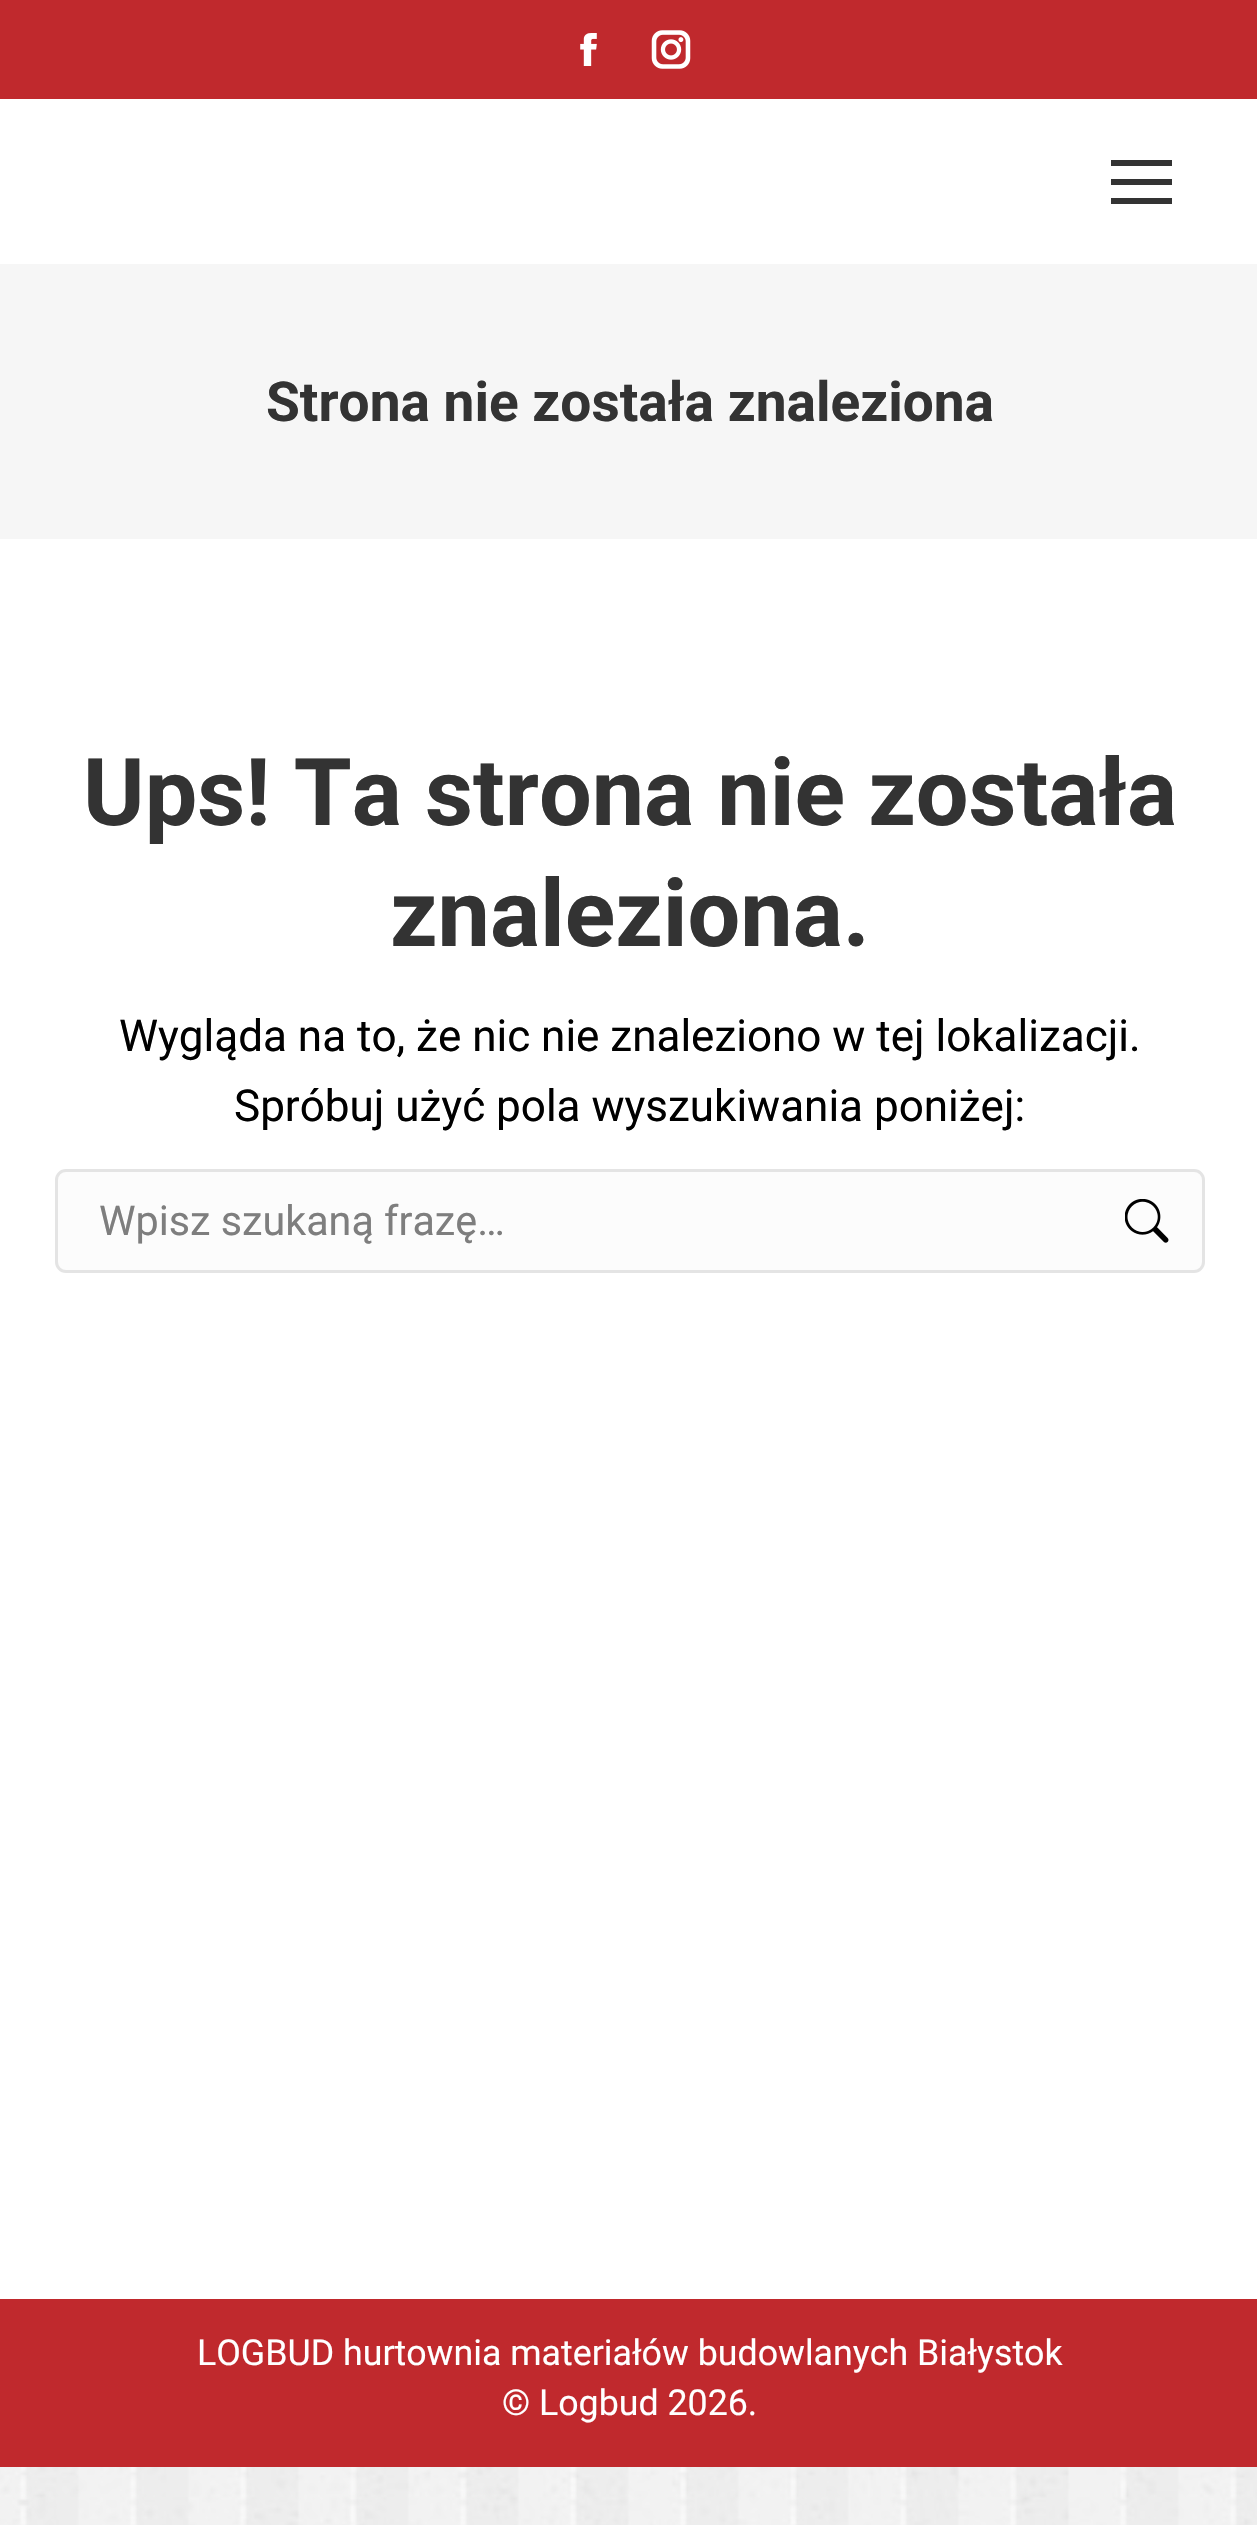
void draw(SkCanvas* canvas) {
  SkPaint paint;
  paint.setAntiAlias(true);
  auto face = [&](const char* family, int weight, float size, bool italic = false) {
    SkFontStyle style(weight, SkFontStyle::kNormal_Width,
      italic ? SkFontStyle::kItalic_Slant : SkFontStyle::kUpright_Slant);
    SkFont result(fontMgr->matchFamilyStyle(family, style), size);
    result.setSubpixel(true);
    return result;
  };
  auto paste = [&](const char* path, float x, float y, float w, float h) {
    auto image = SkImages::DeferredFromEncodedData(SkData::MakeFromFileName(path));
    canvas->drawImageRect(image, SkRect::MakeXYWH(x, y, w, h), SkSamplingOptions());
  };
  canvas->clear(0xffffffff);
  paste("img/1.png", 0, 2467, 1257, 58);
  paint.setColor(0xffc0292d);
  canvas->drawRect(SkRect::MakeXYWH(0, 0, 1257, 99), paint);
  paste("img/2.png", 580, 33, 17, 33);
  paste("img/3.png", 651, 30, 40, 39);
  {
    const struct { float x, y, w, h; SkColor color; } items[] = {
      {1111, 160, 61, 6, 0xff333333},
      {1111, 179, 61, 6, 0xff333333},
      {1111, 198, 61, 6, 0xff333333},
      {0, 264, 1257, 275, 0xfff6f6f6},
    };
    for (auto [x, y, w, h, color] : items) {
      paint.setColor(color);
      canvas->drawRect(SkRect::MakeXYWH(x, y, w, h), paint);
    }
  }
  paint.setColor(0xfffcfcfc);
  canvas->drawRoundRect(SkRect::MakeXYWH(56.5f, 1170.5f, 1147, 101), 9.5f, 9.5f, paint);
  paint.setStroke(true);
  paint.setStrokeWidth(3);
  paint.setColor(0xffe4e4e4);
  canvas->drawRoundRect(SkRect::MakeXYWH(56.5f, 1170.5f, 1147, 101), 9.5f, 9.5f, paint);
  paste("img/4.png", 1125, 1199, 44, 44);
  paint.setStroke(false);
  paint.setColor(0xffc0292d);
  canvas->drawRect(SkRect::MakeXYWH(0, 2299, 1257, 168), paint);
  auto f0 = face("Roboto", 700, 55);
  paint.setColor(0xff333333);
  canvas->drawString("Strona nie została znaleziona", 266, 421, f0, paint);
  auto f1 = face("Roboto", 700, 93.5f);
  canvas->drawString("Ups! Ta strona nie została", 83, 825, f1, paint);
  canvas->drawString("znaleziona.", 390, 946, f1, paint);
  auto f2 = face("Roboto", 400, 44);
  paint.setColor(0xff000000);
  canvas->drawString("Wygląda na to, że nic nie znaleziono w tej lokalizacji.", 119, 1051, f2, paint);
  canvas->drawString("Spróbuj użyć pola wyszukiwania poniżej:", 234, 1121, f2, paint);
  auto f3 = face("Roboto", 400, 41.25f);
  paint.setColor(0xff7e7e7e);
  canvas->drawString("Wpisz szukaną frazę…", 99, 1235, f3, paint);
  auto f4 = face("Roboto", 400, 35.75f);
  paint.setColor(0xffffffff);
  canvas->drawString("LOGBUD hurtownia materiałów budowlanych Białystok", 197, 2365, f4, paint);
  canvas->drawString("© Logbud 2026.", 502, 2415, f4, paint);
}
